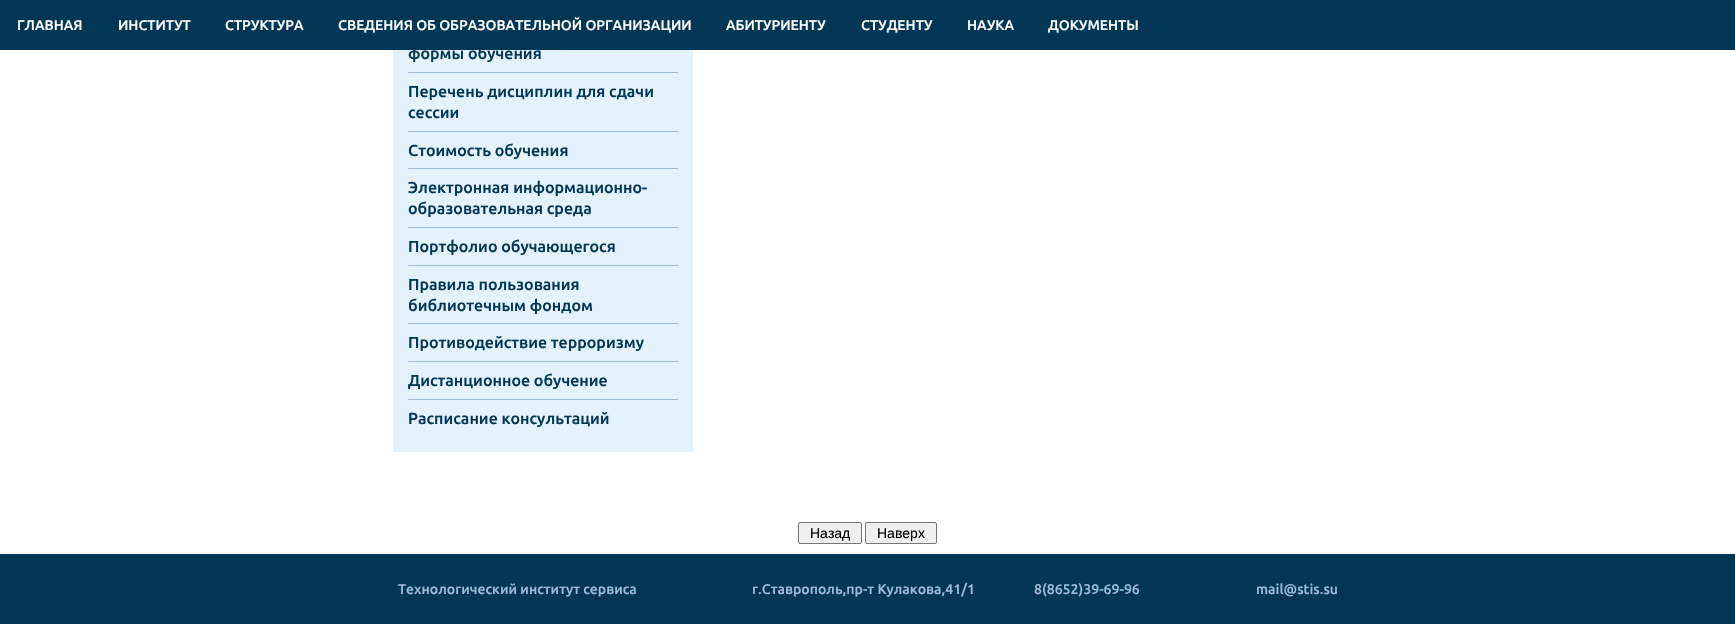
void draw(SkCanvas* canvas) {
  SkPaint paint;
  paint.setAntiAlias(true);
  auto face = [&](const char* family, int weight, float size, bool italic = false) {
    SkFontStyle style(weight, SkFontStyle::kNormal_Width,
      italic ? SkFontStyle::kItalic_Slant : SkFontStyle::kUpright_Slant);
    SkFont result(fontMgr->matchFamilyStyle(family, style), size);
    result.setSubpixel(true);
    return result;
  };
  canvas->clear(0xffffffff);
  {
    const struct { float x, y, w, h; SkColor color; } items[] = {
      {0, 0, 1735, 50, 0xff013655},
      {393, 50, 300, 402, 0xffe3f2fd},
      {408, 72, 270, 1, 0xff9ebcda},
      {408, 131, 270, 1, 0xff9ebcda},
      {408, 168, 270, 1, 0xff9ebcda},
      {408, 227, 270, 1, 0xff9ebcda},
      {408, 265, 270, 1, 0xff9ebcda},
      {408, 323, 270, 1, 0xff9ebcda},
      {408, 361, 270, 1, 0xff9ebcda},
      {408, 399, 270, 1, 0xff9ebcda},
    };
    for (auto [x, y, w, h, color] : items) {
      paint.setColor(color);
      canvas->drawRect(SkRect::MakeXYWH(x, y, w, h), paint);
    }
  }
  paint.setColor(0xffefefef);
  canvas->drawRoundRect(SkRect::MakeXYWH(798.5f, 522.5f, 63, 21), 1.5f, 1.5f, paint);
  paint.setStroke(true);
  paint.setStrokeWidth(1);
  paint.setColor(0xff767676);
  canvas->drawRoundRect(SkRect::MakeXYWH(798.5f, 522.5f, 63, 21), 1.5f, 1.5f, paint);
  paint.setStroke(false);
  paint.setColor(0xffefefef);
  canvas->drawRoundRect(SkRect::MakeXYWH(865.5f, 522.5f, 71, 21), 1.5f, 1.5f, paint);
  paint.setStroke(true);
  paint.setColor(0xff767676);
  canvas->drawRoundRect(SkRect::MakeXYWH(865.5f, 522.5f, 71, 21), 1.5f, 1.5f, paint);
  paint.setStroke(false);
  paint.setColor(0xff013655);
  canvas->drawRect(SkRect::MakeXYWH(0, 554, 1735, 70), paint);
  auto f0 = face("Ubuntu", 500, 14);
  paint.setColor(0xffffffff);
  {
    const struct { const char* s; float x, y; } items[] = {
      {"ГЛАВНАЯ", 17, 30},
      {"ИНСТИТУТ", 118, 30},
      {"СТРУКТУРА", 225, 30},
      {"СВЕДЕНИЯ ОБ ОБРАЗОВАТЕЛЬНОЙ ОРГАНИЗАЦИИ", 338, 30},
      {"АБИТУРИЕНТУ", 726, 30},
      {"СТУДЕНТУ", 861, 30},
      {"НАУКА", 967, 30},
      {"ДОКУМЕНТЫ", 1048, 30},
    };
    for (auto [s, x, y] : items) {
      canvas->drawString(s, x, y, f0, paint);
    }
  }
  auto f1 = face("Ubuntu", 500, 16);
  paint.setColor(0xff013655);
  {
    const struct { const char* s; float x, y; } items[] = {
      {"формы обучения", 408, 59},
      {"Перечень дисциплин для сдачи", 408, 97},
      {"сессии", 408, 118},
      {"Стоимость обучения", 408, 156},
      {"Электронная информационно-", 408, 193},
      {"образовательная среда", 408, 214},
      {"Портфолио обучающегося", 408, 252},
      {"Правила пользования", 408, 290},
      {"библиотечным фондом", 408, 311},
      {"Противодействие терроризму", 408, 348},
      {"Дистанционное обучение", 408, 386},
      {"Расписание консультаций", 408, 424},
    };
    for (auto [s, x, y] : items) {
      canvas->drawString(s, x, y, f1, paint);
    }
  }
  auto f2 = face("Liberation Sans", 400, 14);
  paint.setColor(0xff000000);
  canvas->drawString("Назад", 810, 538, f2, paint);
  canvas->drawString("Наверх", 877, 538, f2, paint);
  paint.setColor(0xff9ebcda);
  {
    const struct { const char* s; float x, y; } items[] = {
      {"Технологический институт сервиса", 398, 594},
      {"г.Ставрополь,пр-т Кулакова,41/1", 752, 594},
      {"8(8652)39-69-96", 1034, 594},
      {"mail@stis.su", 1256, 594},
    };
    for (auto [s, x, y] : items) {
      canvas->drawString(s, x, y, f0, paint);
    }
  }
}
